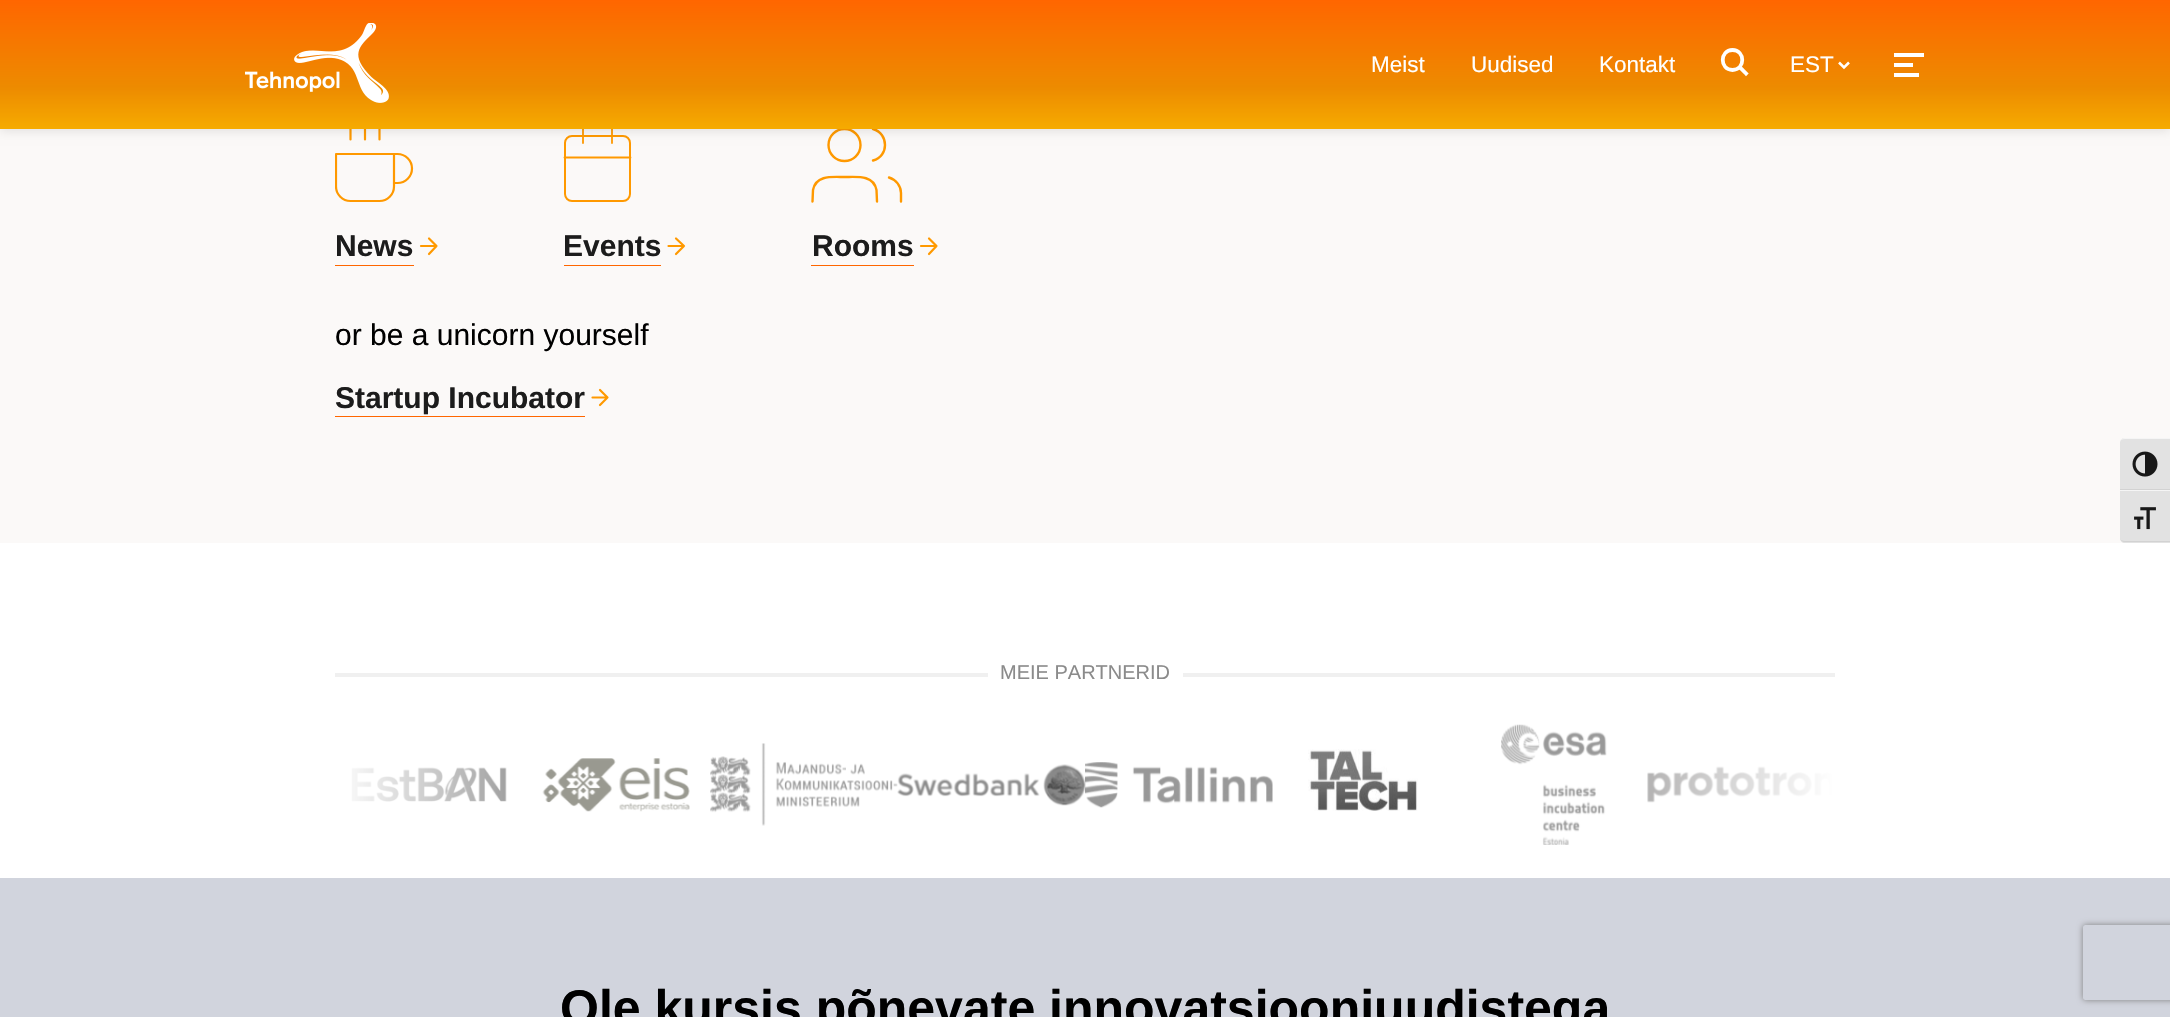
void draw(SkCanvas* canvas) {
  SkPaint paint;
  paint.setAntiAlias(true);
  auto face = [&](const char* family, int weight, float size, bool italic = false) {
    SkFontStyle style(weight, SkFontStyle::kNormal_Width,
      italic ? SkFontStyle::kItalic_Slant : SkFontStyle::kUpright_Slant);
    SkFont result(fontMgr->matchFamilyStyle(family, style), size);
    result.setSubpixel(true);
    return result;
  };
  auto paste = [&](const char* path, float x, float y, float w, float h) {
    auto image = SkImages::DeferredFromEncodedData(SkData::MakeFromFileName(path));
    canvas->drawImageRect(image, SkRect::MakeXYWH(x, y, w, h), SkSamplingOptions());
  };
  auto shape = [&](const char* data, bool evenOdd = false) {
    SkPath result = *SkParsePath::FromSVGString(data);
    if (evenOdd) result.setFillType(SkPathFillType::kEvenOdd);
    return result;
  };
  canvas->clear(0xfffbf9f8);
  paint.setStroke(true);
  paint.setStrokeWidth(2.2f);
  paint.setStrokeCap(SkPaint::kRound_Cap);
  paint.setStrokeJoin(SkPaint::kRound_Join);
  paint.setColor(0xffff9900);
  canvas->drawPath(shape("M350.5 128.5V139.5M365 128.5V139.5M379.5 128.5V139.5"), paint);
  paint.setStrokeWidth(2);
  paint.setStrokeCap(SkPaint::kButt_Cap);
  paint.setStrokeJoin(SkPaint::kMiter_Join);
  canvas->drawRoundRect(SkRect::MakeXYWH(565, 136, 65, 65), 7, 7, paint);
  paint.setStrokeWidth(1.8f);
  paint.setStrokeCap(SkPaint::kRound_Cap);
  paint.setStrokeJoin(SkPaint::kRound_Join);
  canvas->drawPath(shape("M612 128.5V143M583 128.5V143"), paint);
  paint.setStrokeWidth(2.4f);
  paint.setStrokeCap(SkPaint::kButt_Cap);
  paint.setStrokeJoin(SkPaint::kMiter_Join);
  canvas->drawCircle(844.5f, 145, 16, paint);
  paint.setStrokeCap(SkPaint::kRound_Cap);
  paint.setStrokeJoin(SkPaint::kRound_Join);
  canvas->drawPath(shape("M873 129C889 133.5 889 156.5 873 160.5"), paint);
  paint.setStroke(false);
  paint.setColor(0x1a000000);
  paint.setMaskFilter(SkMaskFilter::MakeBlur(kNormal_SkBlurStyle, 5));
  canvas->drawRect(SkRect::MakeXYWH(0, 3, 2170, 128), paint);
  paint.setMaskFilter(nullptr);
  {
    const SkColor colors[] = {0xffff6600, 0xffed8b00, 0xffffcc00};
    const float stops[] = {0, 0.51f, 1};
    const SkPoint ends[] = {{1085, 0}, {1085, 172}};
    paint.setShader(SkGradientShader::MakeLinear(ends, colors, stops, 3, SkTileMode::kClamp));
    paint.setAlpha(255);
  }
  canvas->drawRect(SkRect::MakeXYWH(0, 0, 2170, 129), paint);
  paste("img/1.png", 245, 23, 144, 80);
  paint.setStroke(true);
  paint.setStrokeWidth(3.8f);
  paint.setShader(nullptr);
  paint.setColor(0xffffffff);
  canvas->drawPath(shape("M1732.5 70C1745.5 70 1745.5 50 1732.5 50C1719.5 50 1719.5 70 1732.5 70Z"), paint);
  paint.setStrokeCap(SkPaint::kSquare_Cap);
  canvas->drawPath(shape("M1746 73.5L1741 68.5"), paint);
  paint.setStrokeWidth(2.5f);
  paint.setStrokeCap(SkPaint::kButt_Cap);
  paint.setStrokeJoin(SkPaint::kMiter_Join);
  canvas->drawPath(shape("M1849 62.5L1844 67.5L1839 62.5"), paint);
  paint.setStroke(false);
  {
    const struct { float x, y, w, h; SkColor color; } items[] = {
      {1894, 53, 30, 4, 0xffffffff},
      {1894, 63, 19, 4, 0xffffffff},
      {1894, 73, 25, 4, 0xffffffff},
    };
    for (auto [x, y, w, h, color] : items) {
      paint.setColor(color);
      canvas->drawRect(SkRect::MakeXYWH(x, y, w, h), paint);
    }
  }
  paint.setStroke(true);
  paint.setStrokeWidth(2.2f);
  paint.setStrokeCap(SkPaint::kRound_Cap);
  paint.setStrokeJoin(SkPaint::kRound_Join);
  paint.setColor(0xffff9900);
  canvas->drawPath(shape("M394 154H397.5C405.5 154 412 160.5 412 168.5C412 176.5 405.5 183 397.5 183H394"), paint);
  canvas->save();
  canvas->clipRect(SkRect::MakeXYWH(335, 128, 79, 75));
  canvas->drawPath(shape("M336 154H394V186.5C394 194.5 387.5 201 379.5 201H350.5C342.5 201 336 194.5 336 186.5Z"), paint);
  canvas->restore();
  paint.setStroke(false);
  paint.setColor(0xffff6600);
  canvas->drawRect(SkRect::MakeXYWH(335, 265, 79, 1), paint);
  paint.setStroke(true);
  paint.setColor(0xffff9900);
  canvas->drawPath(shape("M421 246H436.5M429 238.5L436.5 246L429 254"), paint);
  paint.setStrokeWidth(1.8f);
  canvas->drawPath(shape("M564.5 157.5H630.5"), paint);
  paint.setStroke(false);
  paint.setColor(0xffff6600);
  canvas->drawRect(SkRect::MakeXYWH(564, 265, 97, 1), paint);
  paint.setStroke(true);
  paint.setStrokeWidth(2.2f);
  paint.setColor(0xffff9900);
  canvas->drawPath(shape("M668.5 246H684M676 238.5L684 246L676 254"), paint);
  paint.setStrokeWidth(2.4f);
  canvas->drawPath(shape("M877 201.5L876.5 190C873.5 174.5 856.5 177 844.5 177C833 177 816 174.5 813 190L812.5 201.5"), paint);
  canvas->drawPath(shape("M901 201.5V193C901 186 896 179.5 889 177.5"), paint);
  paint.setStroke(false);
  paint.setColor(0xffff6600);
  canvas->drawRect(SkRect::MakeXYWH(811, 265, 103, 1), paint);
  paint.setStroke(true);
  paint.setStrokeWidth(2.2f);
  paint.setColor(0xffff9900);
  canvas->drawPath(shape("M921 246H936.5M929 238.5L936.5 246L929 254"), paint);
  paint.setStroke(false);
  paint.setColor(0xffff6600);
  canvas->drawRect(SkRect::MakeXYWH(335, 416, 250, 1), paint);
  paint.setStroke(true);
  paint.setColor(0xffff9900);
  canvas->drawPath(shape("M592.5 397.5H607.5M600 390L607.5 397.5L600 405"), paint);
  paint.setStroke(false);
  paint.setColor(0xffe2e2e2);
  canvas->drawPath(shape("M2125 438H2170V490H2120V443C2120 440 2122 438 2125 438Z"), paint);
  paint.setColor(0xfff5f5f5);
  canvas->drawPath(shape("M2125 438C2122 438 2120 440 2120 442C2120 440 2122 439 2125 439H2170V438Z"), paint);
  paint.setColor(0xffd2d2d2);
  canvas->drawRect(SkRect::MakeXYWH(2120, 489, 50, 1), paint);
  paste("img/2.png", 2132, 451, 26, 26);
  paint.setColor(0xffe2e2e2);
  canvas->drawPath(shape("M2120 490H2170V543H2125C2122 543 2120 541 2120 538Z"), paint);
  paint.setColor(0xfff5f5f5);
  canvas->drawRect(SkRect::MakeXYWH(2120, 490, 50, 1), paint);
  paint.setColor(0xffd2d2d2);
  canvas->drawPath(shape("M2170 542V541H2125C2122 541 2120 540 2120 538C2120 540 2122 542 2125 542Z"), paint);
  paste("img/3.png", 2134, 507, 22, 23);
  {
    const struct { float x, y, w, h; SkColor color; } items[] = {
      {0, 543, 2170, 335, 0xffffffff},
      {335, 673, 1500, 4, 0xfff0f0f0},
      {988, 673, 195, 4, 0xffffffff},
    };
    for (auto [x, y, w, h, color] : items) {
      paint.setColor(color);
      canvas->drawRect(SkRect::MakeXYWH(x, y, w, h), paint);
    }
  }
  paste("img/4.png", 351, 767, 156, 35);
  paste("img/5.png", 542, 758, 148, 54);
  paste("img/6.png", 710, 743, 188, 83);
  paste("img/7.png", 897, 764, 189, 42);
  paste("img/8.png", 1085, 762, 188, 46);
  paste("img/9.png", 1308, 749, 110, 62);
  paste("img/10.png", 1501, 724, 106, 121);
  paste("img/11.png", 1647, 766, 187, 37);
  {
    const SkColor colors[] = {0xffffffff, 0x00ffffff};
    const float stops[] = {0, 1};
    const SkPoint ends[] = {{335, 785}, {523, 785}};
    paint.setShader(SkGradientShader::MakeLinear(ends, colors, stops, 2, SkTileMode::kClamp));
    paint.setAlpha(255);
  }
  canvas->drawRect(SkRect::MakeXYWH(351, 767, 155, 35), paint);
  {
    const SkColor colors[] = {0xffffffff, 0x00ffffff};
    const float stops[] = {0, 1};
    const SkPoint ends[] = {{1835, 785}, {1648, 785}};
    paint.setShader(SkGradientShader::MakeLinear(ends, colors, stops, 2, SkTileMode::kClamp));
    paint.setAlpha(255);
  }
  canvas->drawRect(SkRect::MakeXYWH(1654, 766, 180, 31), paint);
  paint.setShader(nullptr);
  paint.setColor(0xffd1d4dd);
  canvas->drawRect(SkRect::MakeXYWH(0, 878, 2170, 139), paint);
  canvas->save();
  canvas->clipPath(shape("M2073 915H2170V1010H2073ZM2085.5 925H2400.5C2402 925 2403 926 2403 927.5V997.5C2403 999 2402 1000 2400.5 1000H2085.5C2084 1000 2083 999 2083 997.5V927.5C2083 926 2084 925 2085.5 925Z", true), true);
  paint.setColor(0xff808080);
  paint.setMaskFilter(SkMaskFilter::MakeBlur(kNormal_SkBlurStyle, 3));
  canvas->drawRoundRect(SkRect::MakeXYWH(2083, 925, 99, 75), 2.5f, 2.5f, paint);
  paint.setMaskFilter(nullptr);
  canvas->restore();
  auto f0 = face("Liberation Sans", 400, 22.5f);
  paint.setColor(0xffffffff);
  {
    const struct { const char* s; float x, y; } items[] = {
      {"Meist", 1371, 72},
      {"Uudised", 1471, 72},
      {"Kontakt", 1599, 72},
      {"EST", 1790, 72},
    };
    for (auto [s, x, y] : items) {
      canvas->drawString(s, x, y, f0, paint);
    }
  }
  auto f1 = face("Liberation Sans", 700, 30);
  paint.setColor(0xff1c1c1c);
  {
    const struct { const char* s; float x, y; } items[] = {
      {"News", 335, 256},
      {"Events", 563, 256},
      {"Rooms", 812, 256},
    };
    for (auto [s, x, y] : items) {
      canvas->drawString(s, x, y, f1, paint);
    }
  }
  auto f2 = face("Liberation Sans", 400, 30);
  paint.setColor(0xff000000);
  canvas->drawString("or be a unicorn yourself", 335, 345, f2, paint);
  paint.setColor(0xff1c1c1c);
  canvas->drawString("Startup Incubator", 335, 408, f1, paint);
  auto f3 = face("Liberation Sans", 400, 20);
  paint.setColor(0xff8b8b8b);
  canvas->drawString("MEIE PARTNERID", 1000, 679, f3, paint);
  auto f4 = face("Liberation Sans", 700, 50);
  paint.setColor(0xff000000);
  canvas->drawString("Ole kursis põnevate innovatsiooniuudistega", 560, 1025, f4, paint);
}
